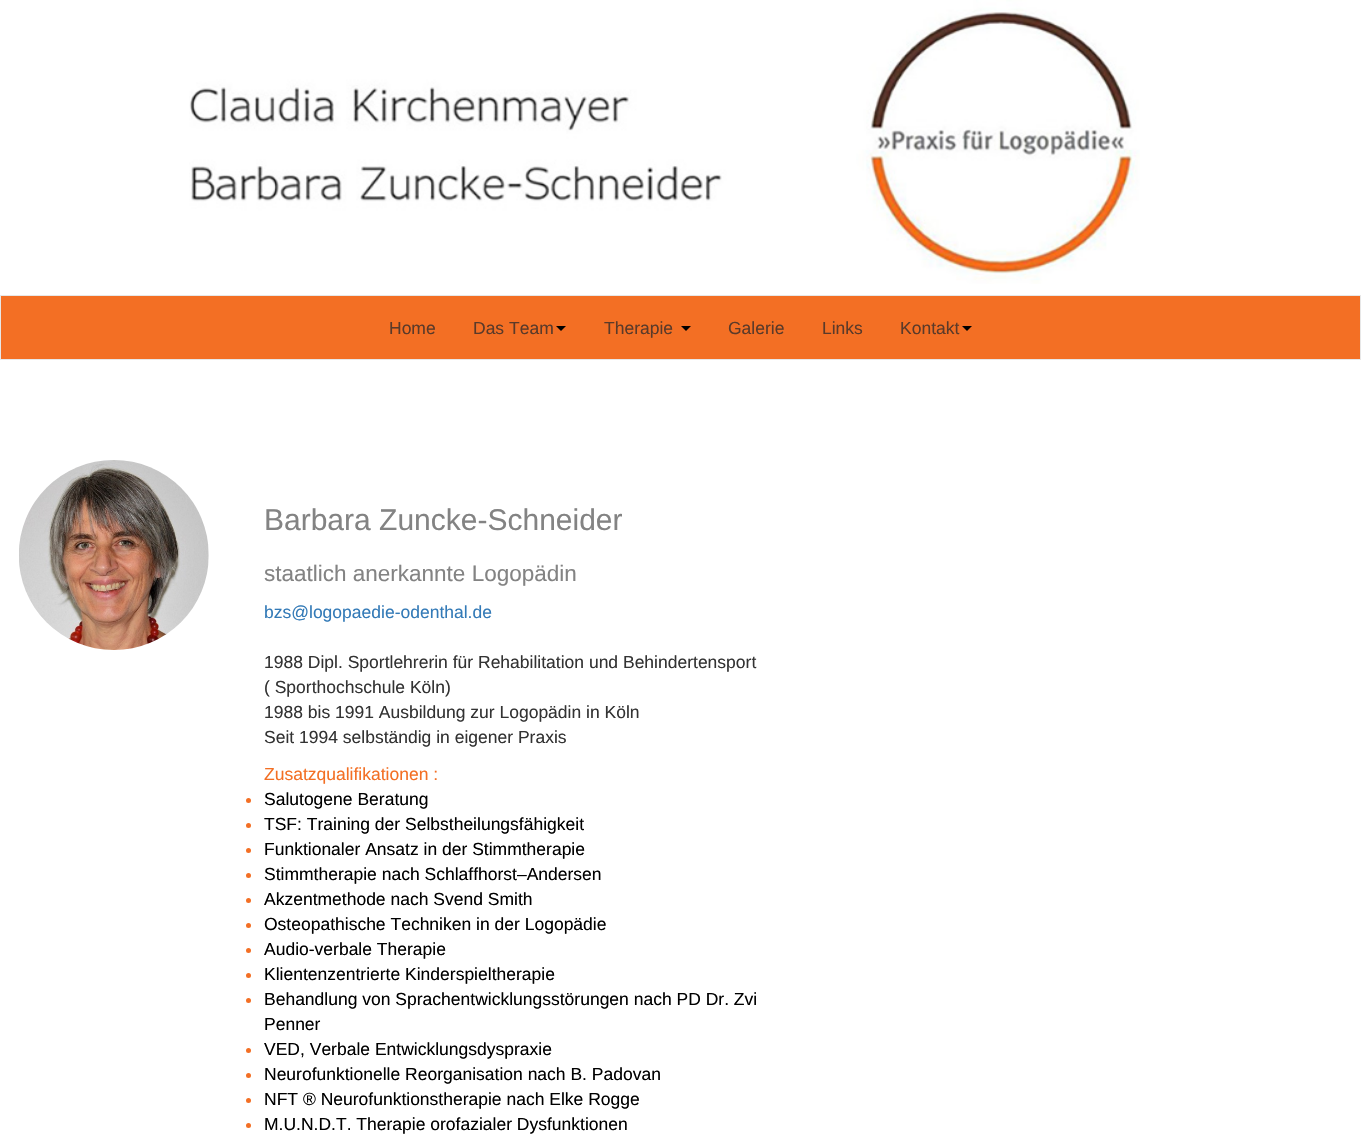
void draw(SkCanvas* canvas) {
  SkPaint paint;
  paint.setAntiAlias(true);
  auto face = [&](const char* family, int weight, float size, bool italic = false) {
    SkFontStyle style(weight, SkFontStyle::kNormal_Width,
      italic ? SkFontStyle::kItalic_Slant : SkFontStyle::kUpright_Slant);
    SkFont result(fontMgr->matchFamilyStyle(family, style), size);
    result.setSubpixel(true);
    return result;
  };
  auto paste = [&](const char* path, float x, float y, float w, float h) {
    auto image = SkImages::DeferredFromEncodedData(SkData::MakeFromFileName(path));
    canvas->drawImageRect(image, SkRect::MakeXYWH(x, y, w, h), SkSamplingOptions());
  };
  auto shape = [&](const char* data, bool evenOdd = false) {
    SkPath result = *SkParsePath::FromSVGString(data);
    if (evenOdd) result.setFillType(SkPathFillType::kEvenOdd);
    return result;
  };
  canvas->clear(0xffffffff);
  paste("img/1.png", 189, 0, 951, 284);
  paint.setColor(0xfff36f24);
  canvas->drawRect(SkRect::MakeXYWH(0.5f, 295.5f, 1360, 64), paint);
  paint.setStroke(true);
  paint.setStrokeWidth(1);
  paint.setColor(0xffe7e7e7);
  canvas->drawRect(SkRect::MakeXYWH(0.5f, 295.5f, 1360, 64), paint);
  paint.setStroke(false);
  paint.setColor(0xff000000);
  canvas->drawPath(shape("M556 326H566L561 331Z"), paint);
  canvas->drawPath(shape("M681 326H691L686 331Z"), paint);
  canvas->drawPath(shape("M962 326H972L967 331Z"), paint);
  paste("img/2.png", 19, 460, 190, 190);
  paint.setColor(0xfff36f24);
  canvas->drawCircle(248.5f, 800.5f, 2.5f, paint);
  canvas->drawCircle(248.5f, 825.5f, 2.5f, paint);
  canvas->drawCircle(248.5f, 850.5f, 2.5f, paint);
  canvas->drawCircle(248.5f, 875.5f, 2.5f, paint);
  canvas->drawCircle(248.5f, 900.5f, 2.5f, paint);
  canvas->drawCircle(248.5f, 925.5f, 2.5f, paint);
  canvas->drawCircle(248.5f, 950.5f, 2.5f, paint);
  canvas->drawCircle(248.5f, 975.5f, 2.5f, paint);
  canvas->drawCircle(248.5f, 1000.5f, 2.5f, paint);
  canvas->drawCircle(248.5f, 1050.5f, 2.5f, paint);
  canvas->drawCircle(248.5f, 1075.5f, 2.5f, paint);
  canvas->drawCircle(248.5f, 1100.5f, 2.5f, paint);
  canvas->drawCircle(248.5f, 1125.5f, 2.5f, paint);
  auto f0 = face("Liberation Sans", 400, 17.5f);
  paint.setColor(0xff5b3a29);
  {
    const struct { const char* s; float x, y; } items[] = {
      {"Home", 389, 334},
      {"Das Team", 473, 334},
      {"Therapie", 604, 334},
      {"Galerie", 728, 334},
      {"Links", 822, 334},
      {"Kontakt", 900, 334},
    };
    for (auto [s, x, y] : items) {
      canvas->drawString(s, x, y, f0, paint);
    }
  }
  auto f1 = face("Liberation Sans", 400, 30);
  paint.setColor(0xff838383);
  canvas->drawString("Barbara Zuncke-Schneider", 264, 530, f1, paint);
  auto f2 = face("Liberation Sans", 400, 22.5f);
  canvas->drawString("staatlich anerkannte Logopädin", 264, 581, f2, paint);
  paint.setColor(0xff337ab7);
  canvas->drawString("bzs@logopaedie-odenthal.de", 264, 618, f0, paint);
  paint.setColor(0xff333333);
  {
    const struct { const char* s; float x, y; } items[] = {
      {"1988 Dipl. Sportlehrerin für Rehabilitation und Behindertensport", 264, 668},
      {"( Sporthochschule Köln)", 264, 693},
      {"1988 bis 1991 Ausbildung zur Logopädin in Köln", 264, 718},
      {"Seit 1994 selbständig in eigener Praxis", 264, 743},
    };
    for (auto [s, x, y] : items) {
      canvas->drawString(s, x, y, f0, paint);
    }
  }
  paint.setColor(0xfff36f24);
  canvas->drawString("Zusatzqualifikationen :", 264, 780, f0, paint);
  paint.setColor(0xff000000);
  {
    const struct { const char* s; float x, y; } items[] = {
      {"Salutogene Beratung", 264, 805},
      {"TSF: Training der Selbstheilungsfähigkeit", 264, 830},
      {"Funktionaler Ansatz in der Stimmtherapie", 264, 855},
      {"Stimmtherapie nach Schlaffhorst–Andersen", 264, 880},
      {"Akzentmethode nach Svend Smith", 264, 905},
      {"Osteopathische Techniken in der Logopädie", 264, 930},
      {"Audio-verbale Therapie", 264, 955},
      {"Klientenzentrierte Kinderspieltherapie", 264, 980},
      {"Behandlung von Sprachentwicklungsstörungen nach PD Dr. Zvi", 264, 1005},
      {"Penner", 264, 1030},
      {"VED, Verbale Entwicklungsdyspraxie", 264, 1055},
      {"Neurofunktionelle Reorganisation nach B. Padovan", 264, 1080},
      {"NFT ® Neurofunktionstherapie nach Elke Rogge", 264, 1105},
      {"M.U.N.D.T. Therapie orofazialer Dysfunktionen", 264, 1130},
    };
    for (auto [s, x, y] : items) {
      canvas->drawString(s, x, y, f0, paint);
    }
  }
}
